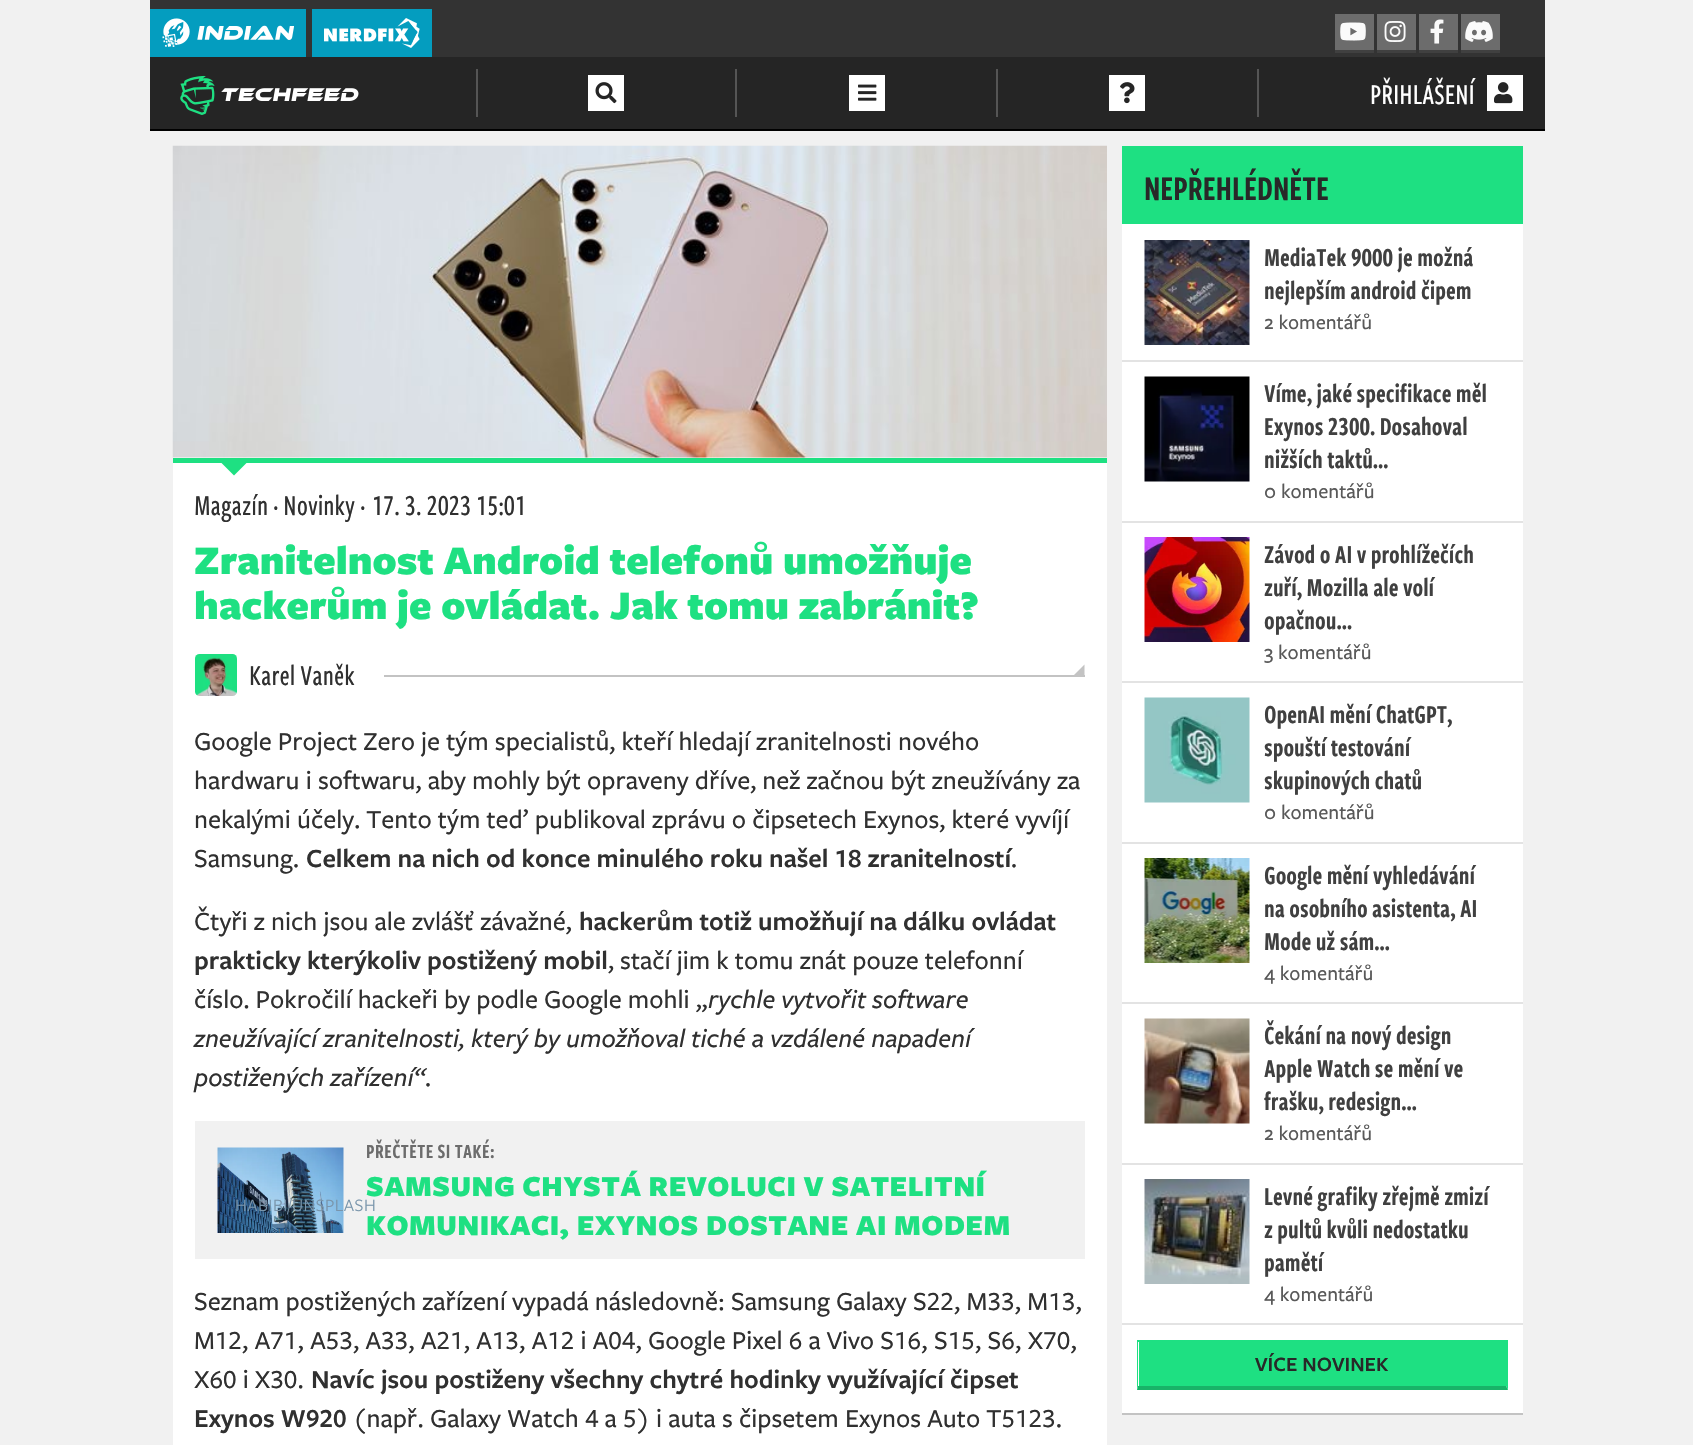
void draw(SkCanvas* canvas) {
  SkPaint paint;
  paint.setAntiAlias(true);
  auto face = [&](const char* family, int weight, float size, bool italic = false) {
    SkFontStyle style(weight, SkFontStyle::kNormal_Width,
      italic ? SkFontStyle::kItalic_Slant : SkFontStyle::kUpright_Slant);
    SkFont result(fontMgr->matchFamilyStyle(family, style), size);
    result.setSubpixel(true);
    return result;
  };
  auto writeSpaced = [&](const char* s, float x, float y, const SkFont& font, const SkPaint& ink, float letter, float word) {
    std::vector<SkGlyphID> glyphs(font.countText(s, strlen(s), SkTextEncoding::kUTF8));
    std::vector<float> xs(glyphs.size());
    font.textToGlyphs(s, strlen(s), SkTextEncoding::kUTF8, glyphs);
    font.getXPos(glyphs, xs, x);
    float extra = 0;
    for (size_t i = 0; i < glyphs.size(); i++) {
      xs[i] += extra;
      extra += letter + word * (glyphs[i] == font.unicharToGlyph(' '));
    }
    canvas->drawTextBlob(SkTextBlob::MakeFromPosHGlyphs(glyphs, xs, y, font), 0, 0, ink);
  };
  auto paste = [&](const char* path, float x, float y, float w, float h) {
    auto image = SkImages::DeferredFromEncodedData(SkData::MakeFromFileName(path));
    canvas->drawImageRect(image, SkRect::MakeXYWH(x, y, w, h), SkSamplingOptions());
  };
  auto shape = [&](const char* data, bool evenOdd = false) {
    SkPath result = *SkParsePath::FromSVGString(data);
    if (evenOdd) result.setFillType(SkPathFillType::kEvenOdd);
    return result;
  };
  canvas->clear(0xfff1f1f1);
  {
    const struct { float x, y, w, h; SkColor color; } items[] = {
      {150, 57, 1395, 72, 0xff252525},
      {150, 129, 1395, 2, 0xff000000},
      {150, 0, 1395, 57, 0xff333333},
      {150, 9, 156, 48, 0xff049dbf},
    };
    for (auto [x, y, w, h, color] : items) {
      paint.setColor(color);
      canvas->drawRect(SkRect::MakeXYWH(x, y, w, h), paint);
    }
  }
  paste("img/1.png", 162, 18, 132, 29);
  canvas->drawRect(SkRect::MakeXYWH(312, 9, 120, 48), paint);
  paste("img/2.png", 324, 18, 96, 30);
  paint.setColor(0xff6c6c6c);
  canvas->drawRect(SkRect::MakeXYWH(1335, 14, 39, 36), paint);
  paint.setColor(0xff404040);
  canvas->drawRect(SkRect::MakeXYWH(1335, 50, 39, 3), paint);
  paste("img/3.png", 1340, 22, 26, 19);
  paint.setColor(0xff6c6c6c);
  canvas->drawRect(SkRect::MakeXYWH(1377, 14, 39, 36), paint);
  paint.setColor(0xff404040);
  canvas->drawRect(SkRect::MakeXYWH(1377, 50, 39, 3), paint);
  paste("img/4.png", 1384, 21, 22, 21);
  paint.setColor(0xff6c6c6c);
  canvas->drawRect(SkRect::MakeXYWH(1419, 14, 39, 36), paint);
  paint.setColor(0xff404040);
  canvas->drawRect(SkRect::MakeXYWH(1419, 50, 39, 3), paint);
  paste("img/5.png", 1430, 19, 14, 25);
  paint.setColor(0xff6c6c6c);
  canvas->drawRect(SkRect::MakeXYWH(1461, 14, 39, 36), paint);
  paint.setColor(0xff404040);
  canvas->drawRect(SkRect::MakeXYWH(1461, 50, 39, 3), paint);
  paste("img/6.png", 1465, 21, 28, 21);
  paste("img/7.png", 180, 75, 179, 40);
  paint.setColor(0xff555555);
  canvas->drawRect(SkRect::MakeXYWH(476, 69, 2, 48), paint);
  paint.setColor(0xffffffff);
  canvas->drawRect(SkRect::MakeXYWH(588, 75, 36, 36), paint);
  paste("img/8.png", 595, 82, 22, 22);
  paint.setColor(0xff555555);
  canvas->drawRect(SkRect::MakeXYWH(735, 69, 2, 48), paint);
  paint.setColor(0xffffffff);
  canvas->drawRect(SkRect::MakeXYWH(849, 75, 36, 36), paint);
  paste("img/9.png", 858, 84, 19, 17);
  paint.setColor(0xff555555);
  canvas->drawRect(SkRect::MakeXYWH(996, 69, 2, 48), paint);
  paint.setColor(0xffffffff);
  canvas->drawRect(SkRect::MakeXYWH(1109, 75, 36, 36), paint);
  paste("img/10.png", 1120, 82, 15, 22);
  paint.setColor(0xff555555);
  canvas->drawRect(SkRect::MakeXYWH(1257, 69, 2, 48), paint);
  paint.setColor(0xffffffff);
  canvas->drawRect(SkRect::MakeXYWH(1487, 75, 36, 36), paint);
  paste("img/11.png", 1494, 82, 19, 22);
  canvas->drawRect(SkRect::MakeXYWH(173, 457, 934, 988), paint);
  paint.setColor(0xff1ee082);
  canvas->drawRect(SkRect::MakeXYWH(173, 458, 934, 5), paint);
  paste("img/12.png", 172, 145, 935, 313);
  canvas->drawPath(shape("M219 460.5H249L234 475.5Z"), paint);
  paste("img/13.png", 195, 654, 42, 42);
  paint.setColor(0xffc3c3c3);
  canvas->drawRect(SkRect::MakeXYWH(384, 675, 701, 2), paint);
  canvas->drawPath(shape("M1084.5 676.5H1072.5L1084.5 664.5Z"), paint);
  paint.setColor(0xfff1f1f1);
  canvas->drawRect(SkRect::MakeXYWH(195, 1121, 890, 138), paint);
  paste("img/14.png", 217, 1147, 127, 86);
  {
    const struct { float x, y, w, h; SkColor color; } items[] = {
      {1122, 224, 401, 1189, 0xffffffff},
      {1122, 1413, 401, 2, 0xffc3c3c3},
      {1122, 146, 401, 78, 0xff1ee082},
      {1122, 360, 401, 2, 0xffe3e3e3},
    };
    for (auto [x, y, w, h, color] : items) {
      paint.setColor(color);
      canvas->drawRect(SkRect::MakeXYWH(x, y, w, h), paint);
    }
  }
  paste("img/15.png", 1144, 240, 106, 105);
  canvas->drawRect(SkRect::MakeXYWH(1122, 521, 401, 2), paint);
  paste("img/16.png", 1144, 376, 106, 106);
  canvas->drawRect(SkRect::MakeXYWH(1122, 681, 401, 2), paint);
  paste("img/17.png", 1144, 537, 106, 105);
  canvas->drawRect(SkRect::MakeXYWH(1122, 842, 401, 2), paint);
  paste("img/18.png", 1144, 697, 106, 106);
  canvas->drawRect(SkRect::MakeXYWH(1122, 1002, 401, 2), paint);
  paste("img/19.png", 1144, 858, 106, 105);
  canvas->drawRect(SkRect::MakeXYWH(1122, 1163, 401, 2), paint);
  paste("img/20.png", 1144, 1018, 106, 106);
  canvas->drawRect(SkRect::MakeXYWH(1122, 1323, 401, 2), paint);
  paste("img/21.png", 1144, 1179, 106, 105);
  paint.setColor(0xff1ee082);
  canvas->drawRect(SkRect::MakeXYWH(1139, 1342, 367, 44), paint);
  canvas->drawRect(SkRect::MakeXYWH(1137, 1340, 371, 2), paint);
  canvas->drawPath(shape("M1508 1340V1390L1506 1386V1341Z"), paint);
  paint.setColor(0xff18b368);
  canvas->drawPath(shape("M1508 1390H1137L1138 1386H1506Z"), paint);
  paint.setColor(0xff1ee082);
  canvas->drawPath(shape("M1137 1390V1340L1138 1341V1386Z"), paint);
  auto f0 = face("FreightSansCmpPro", 500, 30);
  paint.setColor(0xffffffff);
  canvas->drawString("PŘIHLÁŠENÍ", 1370, 104, f0, paint);
  paint.setColor(0xff303030);
  canvas->drawString("Magazín · Novinky ·", 194, 515, f0, paint);
  auto f1 = face("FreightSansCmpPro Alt", 500, 30);
  canvas->drawString("17. 3. 2023 15:01", 372, 515, f1, paint);
  auto f2 = face("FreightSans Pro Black", 900, 42);
  paint.setColor(0xff1ee082);
  canvas->drawString("Zranitelnost Android telefonů umožňuje", 194, 574, f2, paint);
  canvas->drawString("hackerům je ovládat. Jak tomu zabránit?", 194, 619, f2, paint);
  paint.setColor(0xff303030);
  canvas->drawString("Karel Vaněk", 249, 685, f0, paint);
  auto f3 = face("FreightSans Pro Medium", 500, 27);
  {
    const struct { const char* s; float x, y; } items[] = {
      {"Google Project Zero je tým specialistů, kteří hledají zranitelnosti nového", 194, 750},
      {"hardwaru i softwaru, aby mohly být opraveny dříve, než začnou být zneužívány za", 194, 789},
      {"nekalými účely. Tento tým teď publikoval zprávu o čipsetech Exynos, které vyvíjí", 194, 828},
      {"Samsung.", 194, 867},
    };
    for (auto [s, x, y] : items) {
      canvas->drawString(s, x, y, f3, paint);
    }
  }
  auto f4 = face("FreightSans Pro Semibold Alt", 600, 27);
  canvas->drawString("Celkem na nich od konce minulého roku našel 18 zranitelností", 306, 867, f4, paint);
  canvas->drawString(".", 1011, 867, f3, paint);
  canvas->drawString("Čtyři z nich jsou ale zvlášť závažné,", 194, 930, f3, paint);
  auto f5 = face("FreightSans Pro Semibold", 600, 27);
  canvas->drawString("hackerům totiž umožňují na dálku ovládat", 579, 930, f5, paint);
  canvas->drawString("prakticky kterýkoliv postižený mobil", 194, 969, f5, paint);
  canvas->drawString(", stačí jim k tomu znát pouze telefonní", 608, 969, f3, paint);
  canvas->drawString("číslo. Pokročilí hackeři by podle Google mohli „", 194, 1008, f3, paint);
  auto f6 = face("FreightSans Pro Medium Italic", 500, 27, true);
  {
    const struct { const char* s; float x, y; } items[] = {
      {"rychle vytvořit software", 708, 1008},
      {"zneužívající zranitelnosti, který by umožňoval tiché a vzdálené napadení", 194, 1047},
      {"postižených zařízení“", 194, 1086},
    };
    for (auto [s, x, y] : items) {
      canvas->drawString(s, x, y, f6, paint);
    }
  }
  canvas->drawString(".", 425, 1086, f3, paint);
  auto f7 = face("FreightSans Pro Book", 400, 18);
  paint.setColor(0xff7995ab);
  writeSpaced("HABIBI/UNSPLASH", 235, 1211, f7, paint, 0.45f, 0);
  auto f8 = face("FreightSansCmpPro", 600, 21);
  paint.setColor(0xff6c6c6c);
  writeSpaced("PŘEČTĚTE SI TAKÉ:", 366, 1158, f8, paint, 0.45f, 0);
  auto f9 = face("FreightSans Pro Black", 900, 30);
  paint.setColor(0xff1ee082);
  writeSpaced("SAMSUNG CHYSTÁ REVOLUCI V SATELITNÍ", 366, 1196, f9, paint, 0.45f, 0);
  writeSpaced("KOMUNIKACI, EXYNOS DOSTANE AI MODEM", 366, 1235, f9, paint, 0.45f, 0);
  auto f10 = face("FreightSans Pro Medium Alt", 500, 27);
  paint.setColor(0xff303030);
  {
    const struct { const char* s; float x, y; } items[] = {
      {"Seznam postižených zařízení vypadá následovně: Samsung Galaxy S22, M33, M13,", 194, 1310},
      {"M12, A71, A53, A33, A21, A13, A12 i A04, Google Pixel 6 a Vivo S16, S15, S6, X70,", 194, 1349},
      {"X60 i X30.", 194, 1388},
    };
    for (auto [s, x, y] : items) {
      canvas->drawString(s, x, y, f10, paint);
    }
  }
  canvas->drawString("Navíc jsou postiženy všechny chytré hodinky využívající čipset", 311, 1388, f5, paint);
  canvas->drawString("Exynos W920", 194, 1427, f4, paint);
  canvas->drawString("(např. Galaxy Watch 4 a 5) i auta s čipsetem Exynos Auto T5123.", 353, 1427, f10, paint);
  auto f11 = face("FreightSansCmpPro", 600, 36);
  paint.setColor(0xff282828);
  canvas->drawString("NEPŘEHLÉDNĚTE", 1144, 200, f11, paint);
  auto f12 = face("FreightSansCmpPro Alt", 600, 27);
  paint.setColor(0xff404040);
  canvas->drawString("MediaTek 9000 je možná", 1264, 266, f12, paint);
  auto f13 = face("FreightSansCmpPro", 600, 27);
  canvas->drawString("nejlepším android čipem", 1264, 299, f13, paint);
  auto f14 = face("FreightSans Pro Medium", 500, 21);
  paint.setColor(0xff595959);
  canvas->drawString("2 komentářů", 1264, 329, f14, paint);
  paint.setColor(0xff404040);
  canvas->drawString("Víme, jaké specifikace měl", 1264, 402, f13, paint);
  canvas->drawString("Exynos 2300. Dosahoval", 1264, 435, f12, paint);
  canvas->drawString("nižších taktů…", 1264, 468, f13, paint);
  paint.setColor(0xff595959);
  canvas->drawString("0 komentářů", 1264, 498, f14, paint);
  paint.setColor(0xff404040);
  {
    const struct { const char* s; float x, y; } items[] = {
      {"Závod o AI v prohlížečích", 1264, 563},
      {"zuří, Mozilla ale volí", 1264, 596},
      {"opačnou…", 1264, 629},
    };
    for (auto [s, x, y] : items) {
      canvas->drawString(s, x, y, f13, paint);
    }
  }
  paint.setColor(0xff595959);
  canvas->drawString("3 komentářů", 1264, 659, f14, paint);
  paint.setColor(0xff404040);
  {
    const struct { const char* s; float x, y; } items[] = {
      {"OpenAI mění ChatGPT,", 1264, 723},
      {"spouští testování", 1264, 756},
      {"skupinových chatů", 1264, 789},
    };
    for (auto [s, x, y] : items) {
      canvas->drawString(s, x, y, f13, paint);
    }
  }
  paint.setColor(0xff595959);
  canvas->drawString("0 komentářů", 1264, 819, f14, paint);
  paint.setColor(0xff404040);
  {
    const struct { const char* s; float x, y; } items[] = {
      {"Google mění vyhledávání", 1264, 884},
      {"na osobního asistenta, AI", 1264, 917},
      {"Mode už sám…", 1264, 950},
    };
    for (auto [s, x, y] : items) {
      canvas->drawString(s, x, y, f13, paint);
    }
  }
  paint.setColor(0xff595959);
  canvas->drawString("4 komentářů", 1264, 980, f14, paint);
  paint.setColor(0xff404040);
  {
    const struct { const char* s; float x, y; } items[] = {
      {"Čekání na nový design", 1264, 1044},
      {"Apple Watch se mění ve", 1264, 1077},
      {"frašku, redesign…", 1264, 1110},
    };
    for (auto [s, x, y] : items) {
      canvas->drawString(s, x, y, f13, paint);
    }
  }
  paint.setColor(0xff595959);
  canvas->drawString("2 komentářů", 1264, 1140, f14, paint);
  paint.setColor(0xff404040);
  {
    const struct { const char* s; float x, y; } items[] = {
      {"Levné grafiky zřejmě zmizí", 1264, 1205},
      {"z pultů kvůli nedostatku", 1264, 1238},
      {"pamětí", 1264, 1271},
    };
    for (auto [s, x, y] : items) {
      canvas->drawString(s, x, y, f13, paint);
    }
  }
  paint.setColor(0xff595959);
  canvas->drawString("4 komentářů", 1264, 1301, f14, paint);
  auto f15 = face("FreightSans Pro Semibold", 600, 21);
  paint.setColor(0xff282828);
  canvas->drawString("VÍCE NOVINEK", 1255, 1371, f15, paint);
}
